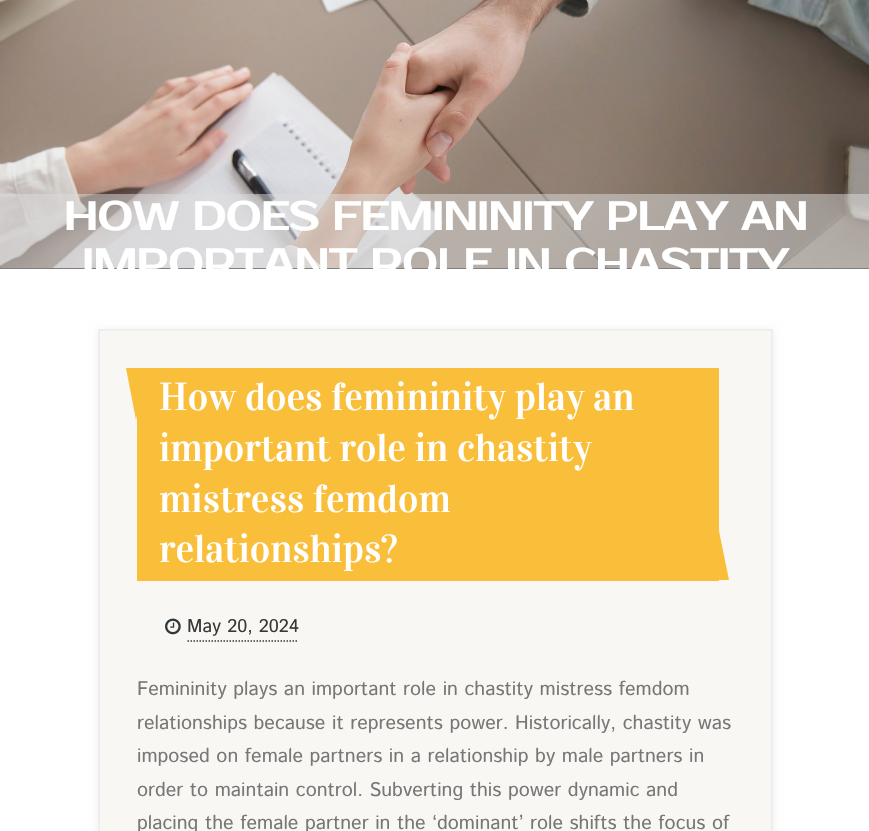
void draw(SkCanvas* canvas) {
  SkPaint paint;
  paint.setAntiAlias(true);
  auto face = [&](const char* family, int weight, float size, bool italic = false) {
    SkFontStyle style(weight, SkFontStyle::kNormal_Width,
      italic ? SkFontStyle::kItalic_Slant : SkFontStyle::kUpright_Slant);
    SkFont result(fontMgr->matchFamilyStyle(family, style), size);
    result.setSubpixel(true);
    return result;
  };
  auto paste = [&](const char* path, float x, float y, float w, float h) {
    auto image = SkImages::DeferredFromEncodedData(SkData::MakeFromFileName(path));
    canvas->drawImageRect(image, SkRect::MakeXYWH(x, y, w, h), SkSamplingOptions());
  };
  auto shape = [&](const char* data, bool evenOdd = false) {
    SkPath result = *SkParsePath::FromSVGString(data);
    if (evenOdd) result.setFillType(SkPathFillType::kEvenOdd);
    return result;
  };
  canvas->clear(0xffffffff);
  paint.setColor(0xff222222);
  canvas->drawRect(SkRect::MakeXYWH(0, 268, 869, 1), paint);
  paste("img/1.png", 0, 0, 869, 268);
  paint.setColor(0x80dedede);
  canvas->drawRect(SkRect::MakeXYWH(0, 194, 869, 75), paint);
  paint.setColor(0xffefefef);
  paint.setMaskFilter(SkMaskFilter::MakeBlur(kNormal_SkBlurStyle, 4));
  canvas->drawRect(SkRect::MakeXYWH(98, 330, 675, 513), paint);
  paint.setMaskFilter(nullptr);
  paint.setColor(0xfff9f7f3);
  canvas->drawRect(SkRect::MakeXYWH(99, 330, 673, 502), paint);
  paint.setStroke(true);
  paint.setStrokeWidth(2);
  paint.setColor(0xffeeeeee);
  canvas->drawRect(SkRect::MakeXYWH(99, 330, 673, 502), paint);
  paint.setStroke(false);
  paint.setColor(0xfff9bf3b);
  canvas->drawRect(SkRect::MakeXYWH(137, 368, 582, 213), paint);
  canvas->drawPath(shape("M126 368H147L136 420Z"), paint);
  canvas->drawPath(shape("M729 580H708L718 526Z"), paint);
  paste("img/2.png", 165, 618, 16, 17);
  paint.setStroke(true);
  paint.setStrokeWidth(1.5f);
  paint.setColor(0xff383838);
  paint.setPathEffect(SkDashPathEffect::Make({{1.5f, 1.5f}}, 0));
  canvas->drawPath(shape("M187.5 641H298.5"), paint);
  paint.setPathEffect(nullptr);
  auto f0 = face("Prosto One", 700, 39.4f);
  paint.setStroke(false);
  paint.setColor(0xffffffff);
  canvas->drawString("HOW DOES FEMININITY PLAY AN", 64, 230, f0, paint);
  canvas->save();
  canvas->clipRect(SkRect::MakeXYWH(0, 0, 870, 269));
  canvas->drawString("IMPORTANT ROLE IN CHASTITY", 82, 277, f0, paint);
  canvas->restore();
  auto f1 = face("Vidaloka", 400, 39);
  {
    const struct { const char* s; float x, y; } items[] = {
      {"How does femininity play an", 159, 410},
      {"important role in chastity", 159, 461},
      {"mistress femdom", 159, 512},
      {"relationships?", 159, 562},
    };
    for (auto [s, x, y] : items) {
      canvas->drawString(s, x, y, f1, paint);
    }
  }
  auto f2 = face("Istok Web", 400, 18.5f);
  paint.setColor(0xff383838);
  canvas->drawString("May 20, 2024", 187, 632, f2, paint);
  auto f3 = face("Istok Web", 400, 19.7f);
  paint.setColor(0xff777777);
  {
    const struct { const char* s; float x, y; } items[] = {
      {"Femininity plays an important role in chastity mistress femdom", 137, 695},
      {"relationships because it represents power. Historically, chastity was", 137, 729},
      {"imposed on female partners in a relationship by male partners in", 137, 762},
      {"order to maintain control. Subverting this power dynamic and", 137, 796},
      {"placing the female partner in the ‘dominant’ role shifts the focus of", 137, 829},
    };
    for (auto [s, x, y] : items) {
      canvas->drawString(s, x, y, f3, paint);
    }
  }
}
